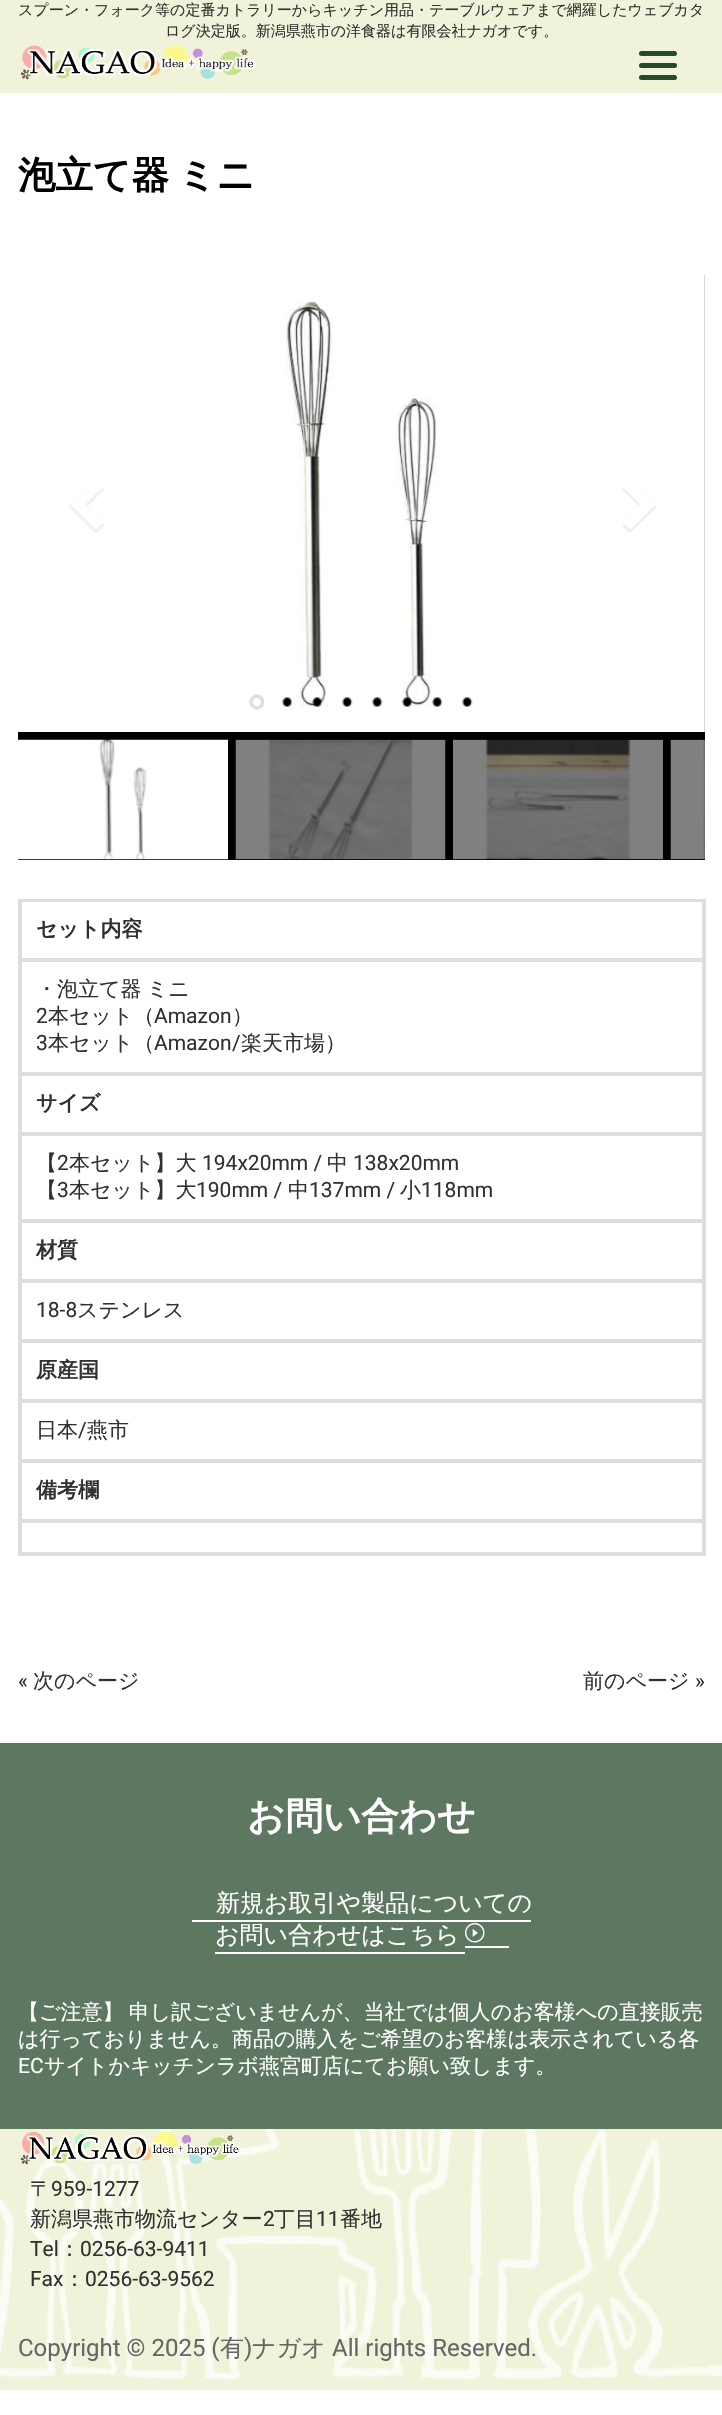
void draw(SkCanvas* canvas) {
  SkPaint paint;
  paint.setAntiAlias(true);
  auto face = [&](const char* family, int weight, float size, bool italic = false) {
    SkFontStyle style(weight, SkFontStyle::kNormal_Width,
      italic ? SkFontStyle::kItalic_Slant : SkFontStyle::kUpright_Slant);
    SkFont result(fontMgr->matchFamilyStyle(family, style), size);
    result.setSubpixel(true);
    return result;
  };
  auto writeSpaced = [&](const char* s, float x, float y, const SkFont& font, const SkPaint& ink, float letter, float word) {
    std::vector<SkGlyphID> glyphs(font.countText(s, strlen(s), SkTextEncoding::kUTF8));
    std::vector<float> xs(glyphs.size());
    font.textToGlyphs(s, strlen(s), SkTextEncoding::kUTF8, glyphs);
    font.getXPos(glyphs, xs, x);
    float extra = 0;
    for (size_t i = 0; i < glyphs.size(); i++) {
      xs[i] += extra;
      extra += letter + word * (glyphs[i] == font.unicharToGlyph(' '));
    }
    canvas->drawTextBlob(SkTextBlob::MakeFromPosHGlyphs(glyphs, xs, y, font), 0, 0, ink);
  };
  auto paste = [&](const char* path, float x, float y, float w, float h) {
    auto image = SkImages::DeferredFromEncodedData(SkData::MakeFromFileName(path));
    canvas->drawImageRect(image, SkRect::MakeXYWH(x, y, w, h), SkSamplingOptions());
  };
  canvas->clear(0xffffffff);
  paint.setColor(0xfff1f2da);
  canvas->drawRect(SkRect::MakeXYWH(0, 0, 722, 93), paint);
  paste("img/1.png", 21, 45, 236, 35);
  paint.setColor(0xff254c2a);
  canvas->drawRoundRect(SkRect::MakeXYWH(639, 51, 38, 5), 2.5f, 2.5f, paint);
  canvas->drawRoundRect(SkRect::MakeXYWH(639, 63, 38, 5), 2.5f, 2.5f, paint);
  canvas->drawRoundRect(SkRect::MakeXYWH(639, 75, 38, 5), 2.5f, 2.5f, paint);
  paint.setColor(0xff000000);
  canvas->drawRect(SkRect::MakeXYWH(18, 275, 687, 585), paint);
  paste("img/2.png", 18, 275, 687, 457);
  paste("img/3.png", 69, 487, 36, 46);
  paste("img/4.png", 622, 487, 35, 46);
  paste("img/5.png", 249, 694, 15, 16);
  paste("img/6.png", 281, 697, 12, 10);
  paste("img/7.png", 311, 697, 12, 10);
  paste("img/6.png", 341, 697, 12, 10);
  paste("img/6.png", 371, 697, 12, 10);
  paste("img/8.png", 401, 697, 12, 10);
  paste("img/6.png", 431, 697, 12, 10);
  paste("img/6.png", 461, 697, 12, 10);
  paste("img/9.png", 18, 739, 210, 121);
  paste("img/10.png", 235, 739, 211, 121);
  paste("img/11.png", 453, 739, 210, 121);
  paste("img/12.png", 670, 739, 35, 121);
  paint.setStroke(true);
  paint.setStrokeWidth(2);
  paint.setColor(0xffdddddd);
  canvas->drawRect(SkRect::MakeXYWH(21, 901, 682, 58), paint);
  paint.setStroke(false);
  {
    const struct { float x, y, w, h; SkColor color; } items[] = {
      {18, 899, 687, 2, 0xffdddddd},
      {704, 899, 2, 657, 0xffdddddd},
      {18, 1554, 687, 2, 0xffdddddd},
      {18, 899, 2, 657, 0xffdddddd},
    };
    for (auto [x, y, w, h, color] : items) {
      paint.setColor(color);
      canvas->drawRect(SkRect::MakeXYWH(x, y, w, h), paint);
    }
  }
  paint.setStroke(true);
  canvas->drawRect(SkRect::MakeXYWH(21, 961, 682, 112), paint);
  canvas->drawRect(SkRect::MakeXYWH(21, 1075, 682, 58), paint);
  canvas->drawRect(SkRect::MakeXYWH(21, 1135, 682, 85), paint);
  canvas->drawRect(SkRect::MakeXYWH(21, 1222, 682, 58), paint);
  canvas->drawRect(SkRect::MakeXYWH(21, 1282, 682, 58), paint);
  canvas->drawRect(SkRect::MakeXYWH(21, 1342, 682, 58), paint);
  canvas->drawRect(SkRect::MakeXYWH(21, 1402, 682, 58), paint);
  canvas->drawRect(SkRect::MakeXYWH(21, 1462, 682, 58), paint);
  canvas->drawRect(SkRect::MakeXYWH(21, 1522, 682, 31), paint);
  paint.setStroke(false);
  paint.setColor(0xfff1f2da);
  canvas->drawRect(SkRect::MakeXYWH(0, 2129, 722, 261), paint);
  paste("img/13.png", 0, 2129, 722, 252);
  {
    const struct { float x, y, w, h; SkColor color; } items[] = {
      {0, 1743, 722, 386, 0xff5d7760},
      {192, 1920, 339, 2, 0xffffffff},
      {215, 1952, 250, 2, 0xffffffff},
      {465, 1946, 44, 2, 0xffffffff},
    };
    for (auto [x, y, w, h, color] : items) {
      paint.setColor(color);
      canvas->drawRect(SkRect::MakeXYWH(x, y, w, h), paint);
    }
  }
  paste("img/14.png", 465, 1923, 20, 20);
  paste("img/15.png", 20, 2131, 221, 34);
  auto f0 = face("WenQuanYi Zen Hei", 500, 15);
  paint.setColor(0xff313131);
  canvas->drawString("スプーン・フォーク等の定番カトラリーからキッチン用品・テーブルウェアまで網羅したウェブカタ", 18, 15, f0, paint);
  canvas->drawString("ログ決定版。新潟県燕市の洋食器は有限会社ナガオです。", 165, 36, f0, paint);
  auto f1 = face("WenQuanYi Zen Hei", 700, 37.5f);
  paint.setColor(0xff000000);
  writeSpaced("泡立て器 ミニ", 18, 188, f1, paint, 0, -2);
  auto f2 = face("WenQuanYi Zen Hei", 700, 21);
  paint.setColor(0xff313131);
  canvas->drawString("セット内容", 36, 936, f2, paint);
  auto f3 = face("WenQuanYi Zen Hei", 500, 21);
  writeSpaced("・泡立て器 ミニ", 36, 996, f3, paint, 0, -1);
  auto f4 = face("Roboto", 400, 21);
  canvas->drawString("2", 36, 1023, f4, paint);
  canvas->drawString("本セット（", 48, 1023, f3, paint);
  canvas->drawString("Amazon", 154, 1023, f4, paint);
  canvas->drawString("）", 232, 1023, f3, paint);
  canvas->drawString("3", 36, 1050, f4, paint);
  canvas->drawString("本セット（", 48, 1050, f3, paint);
  canvas->drawString("Amazon", 154, 1050, f4, paint);
  canvas->drawString("/", 232, 1050, f4, paint);
  canvas->drawString("楽天市場", 241, 1050, f3, paint);
  canvas->drawString("）", 325, 1050, f3, paint);
  canvas->drawString("サイズ", 36, 1110, f2, paint);
  canvas->drawString("【", 36, 1170, f3, paint);
  canvas->drawString("2", 57, 1170, f4, paint);
  canvas->drawString("本セット】大", 69, 1170, f3, paint);
  canvas->drawString("194x20mm /", 202, 1170, f4, paint);
  canvas->drawString("中", 327, 1170, f3, paint);
  canvas->drawString("138x20mm", 353, 1170, f4, paint);
  canvas->drawString("【", 36, 1197, f3, paint);
  canvas->drawString("3", 57, 1197, f4, paint);
  canvas->drawString("本セット】大", 69, 1197, f3, paint);
  canvas->drawString("190mm /", 196, 1197, f4, paint);
  canvas->drawString("中", 288, 1197, f3, paint);
  canvas->drawString("137mm /", 309, 1197, f4, paint);
  canvas->drawString("小", 400, 1197, f3, paint);
  canvas->drawString("118mm", 421, 1197, f4, paint);
  canvas->drawString("材質", 36, 1257, f2, paint);
  canvas->drawString("18-8", 36, 1317, f4, paint);
  canvas->drawString("ステンレス", 77, 1317, f3, paint);
  canvas->drawString("原産国", 36, 1377, f2, paint);
  canvas->drawString("日本", 36, 1437, f3, paint);
  canvas->drawString("/", 78, 1437, f4, paint);
  canvas->drawString("燕市", 87, 1437, f3, paint);
  canvas->drawString("備考欄", 36, 1497, f2, paint);
  canvas->drawString("«", 18, 1688, f4, paint);
  canvas->drawString("次のページ", 33, 1688, f3, paint);
  canvas->drawString("前のページ", 583, 1688, f3, paint);
  canvas->drawString("»", 695, 1688, f4, paint);
  paint.setColor(0xffffffff);
  canvas->drawString("お問い合わせ", 247, 1829, f1, paint);
  auto f5 = face("WenQuanYi Zen Hei", 500, 24);
  canvas->drawString("新規お取引や製品についての", 216, 1911, f5, paint);
  canvas->drawString("お問い合わせはこちら", 215, 1943, f5, paint);
  writeSpaced("【ご注意】 申し訳ございませんが、当社では個人のお客様への直接販売", 18, 2019, f3, paint, 0, -1);
  canvas->drawString("は行っておりません。商品の購入をご希望のお客様は表示されている各", 18, 2046, f3, paint);
  canvas->drawString("EC", 18, 2073, f4, paint);
  canvas->drawString("サイトかキッチンラボ燕宮町店にてお願い致します。", 44, 2073, f3, paint);
  paint.setColor(0xff313131);
  canvas->drawString("〒", 30, 2196, f3, paint);
  canvas->drawString("959-1277", 51, 2196, f4, paint);
  canvas->drawString("新潟県燕市物流センター", 30, 2226, f3, paint);
  canvas->drawString("2", 263, 2226, f4, paint);
  canvas->drawString("丁目", 274, 2226, f3, paint);
  canvas->drawString("11", 316, 2226, f4, paint);
  canvas->drawString("番地", 340, 2226, f3, paint);
  canvas->drawString("Tel", 30, 2256, f4, paint);
  canvas->drawString("：", 59, 2256, f3, paint);
  canvas->drawString("0256-63-9411", 80, 2256, f4, paint);
  canvas->drawString("Fax", 30, 2286, f4, paint);
  canvas->drawString("：", 64, 2286, f3, paint);
  canvas->drawString("0256-63-9562", 85, 2286, f4, paint);
  auto f6 = face("Roboto", 400, 24);
  paint.setColor(0xff666666);
  canvas->drawString("Copyright © 2025 (", 18, 2356, f6, paint);
  canvas->drawString("有", 220, 2356, f5, paint);
  canvas->drawString(")", 244, 2356, f6, paint);
  canvas->drawString("ナガオ", 252, 2356, f5, paint);
  canvas->drawString("All rights Reserved.", 332, 2356, f6, paint);
}
